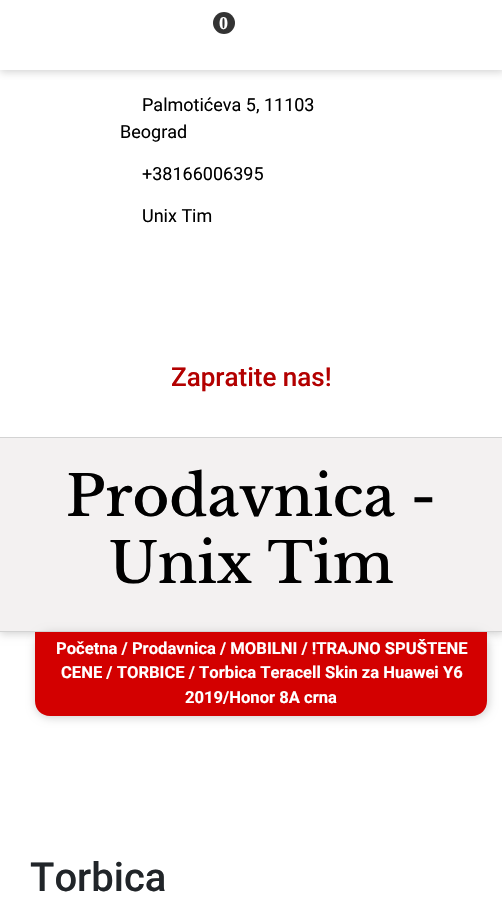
void draw(SkCanvas* canvas) {
  SkPaint paint;
  paint.setAntiAlias(true);
  auto face = [&](const char* family, int weight, float size, bool italic = false) {
    SkFontStyle style(weight, SkFontStyle::kNormal_Width,
      italic ? SkFontStyle::kItalic_Slant : SkFontStyle::kUpright_Slant);
    SkFont result(fontMgr->matchFamilyStyle(family, style), size);
    result.setSubpixel(true);
    return result;
  };
  auto shape = [&](const char* data, bool evenOdd = false) {
    SkPath result = *SkParsePath::FromSVGString(data);
    if (evenOdd) result.setFillType(SkPathFillType::kEvenOdd);
    return result;
  };
  canvas->clear(0xffffffff);
  canvas->save();
  canvas->clipRect(SkRect::MakeXYWH(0, 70, 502, 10));
  paint.setColor(0xffd3d3d3);
  paint.setMaskFilter(SkMaskFilter::MakeBlur(kNormal_SkBlurStyle, 4));
  canvas->drawRect(SkRect::MakeXYWH(0, 0, 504, 72), paint);
  paint.setMaskFilter(nullptr);
  canvas->restore();
  paint.setColor(0xff333333);
  canvas->drawCircle(224, 23, 11, paint);
  canvas->save();
  canvas->clipRect(SkRect::MakeXYWH(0, 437, 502, 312));
  paint.setColor(0xffd3d3d3);
  paint.setMaskFilter(SkMaskFilter::MakeBlur(kNormal_SkBlurStyle, 4));
  canvas->drawRect(SkRect::MakeXYWH(0, 437, 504, 197), paint);
  paint.setMaskFilter(nullptr);
  canvas->restore();
  {
    const struct { float x, y, w, h; SkColor color; } items[] = {
      {0, 438, 502, 193, 0xfff3f1f1},
      {0, 437, 502, 1, 0xffd3d3d3},
      {0, 631, 502, 1, 0xffd3d3d3},
    };
    for (auto [x, y, w, h, color] : items) {
      paint.setColor(color);
      canvas->drawRect(SkRect::MakeXYWH(x, y, w, h), paint);
    }
  }
  paint.setMaskFilter(SkMaskFilter::MakeBlur(kNormal_SkBlurStyle, 4));
  canvas->drawRoundRect(SkRect::MakeXYWH(35, 632, 454, 86), 16, 16, paint);
  paint.setMaskFilter(nullptr);
  paint.setColor(0xffd30000);
  canvas->drawPath(shape("M35 632H487V701C487 709.5 480.5 716 472 716H50C41.5 716 35 709.5 35 701Z"), paint);
  auto f0 = face("Liberation Serif", 700, 18);
  paint.setColor(0xffffffff);
  canvas->drawString("0", 219, 29, f0, paint);
  auto f1 = face("Roboto", 400, 18);
  paint.setColor(0xff000000);
  {
    const struct { const char* s; float x, y; } items[] = {
      {"Palmotićeva 5, 11103", 142, 111},
      {"Beograd", 120, 138},
      {"+38166006395", 142, 180},
      {"Unix Tim", 142, 222},
    };
    for (auto [s, x, y] : items) {
      canvas->drawString(s, x, y, f1, paint);
    }
  }
  auto f2 = face("Roboto", 500, 26);
  paint.setColor(0xffb30000);
  canvas->drawString("Zapratite nas!", 171, 386, f2, paint);
  auto f3 = face("Libre Baskerville", 500, 56);
  paint.setColor(0xff000000);
  canvas->drawString("Prodavnica -", 66, 516, f3, paint);
  canvas->drawString("Unix Tim", 109, 583, f3, paint);
  auto f4 = face("Roboto", 700, 16.6f);
  paint.setColor(0xffffffff);
  {
    const struct { const char* s; float x, y; } items[] = {
      {"Početna / Prodavnica / MOBILNI / !TRAJNO SPUŠTENE", 56, 654},
      {"CENE / TORBICE / Torbica Teracell Skin za Huawei Y6", 61, 678},
      {"2019/Honor 8A crna", 185, 703},
    };
    for (auto [s, x, y] : items) {
      canvas->drawString(s, x, y, f4, paint);
    }
  }
  auto f5 = face("Roboto", 500, 40);
  paint.setColor(0xff212529);
  canvas->drawString("Torbica", 30, 891, f5, paint);
}
